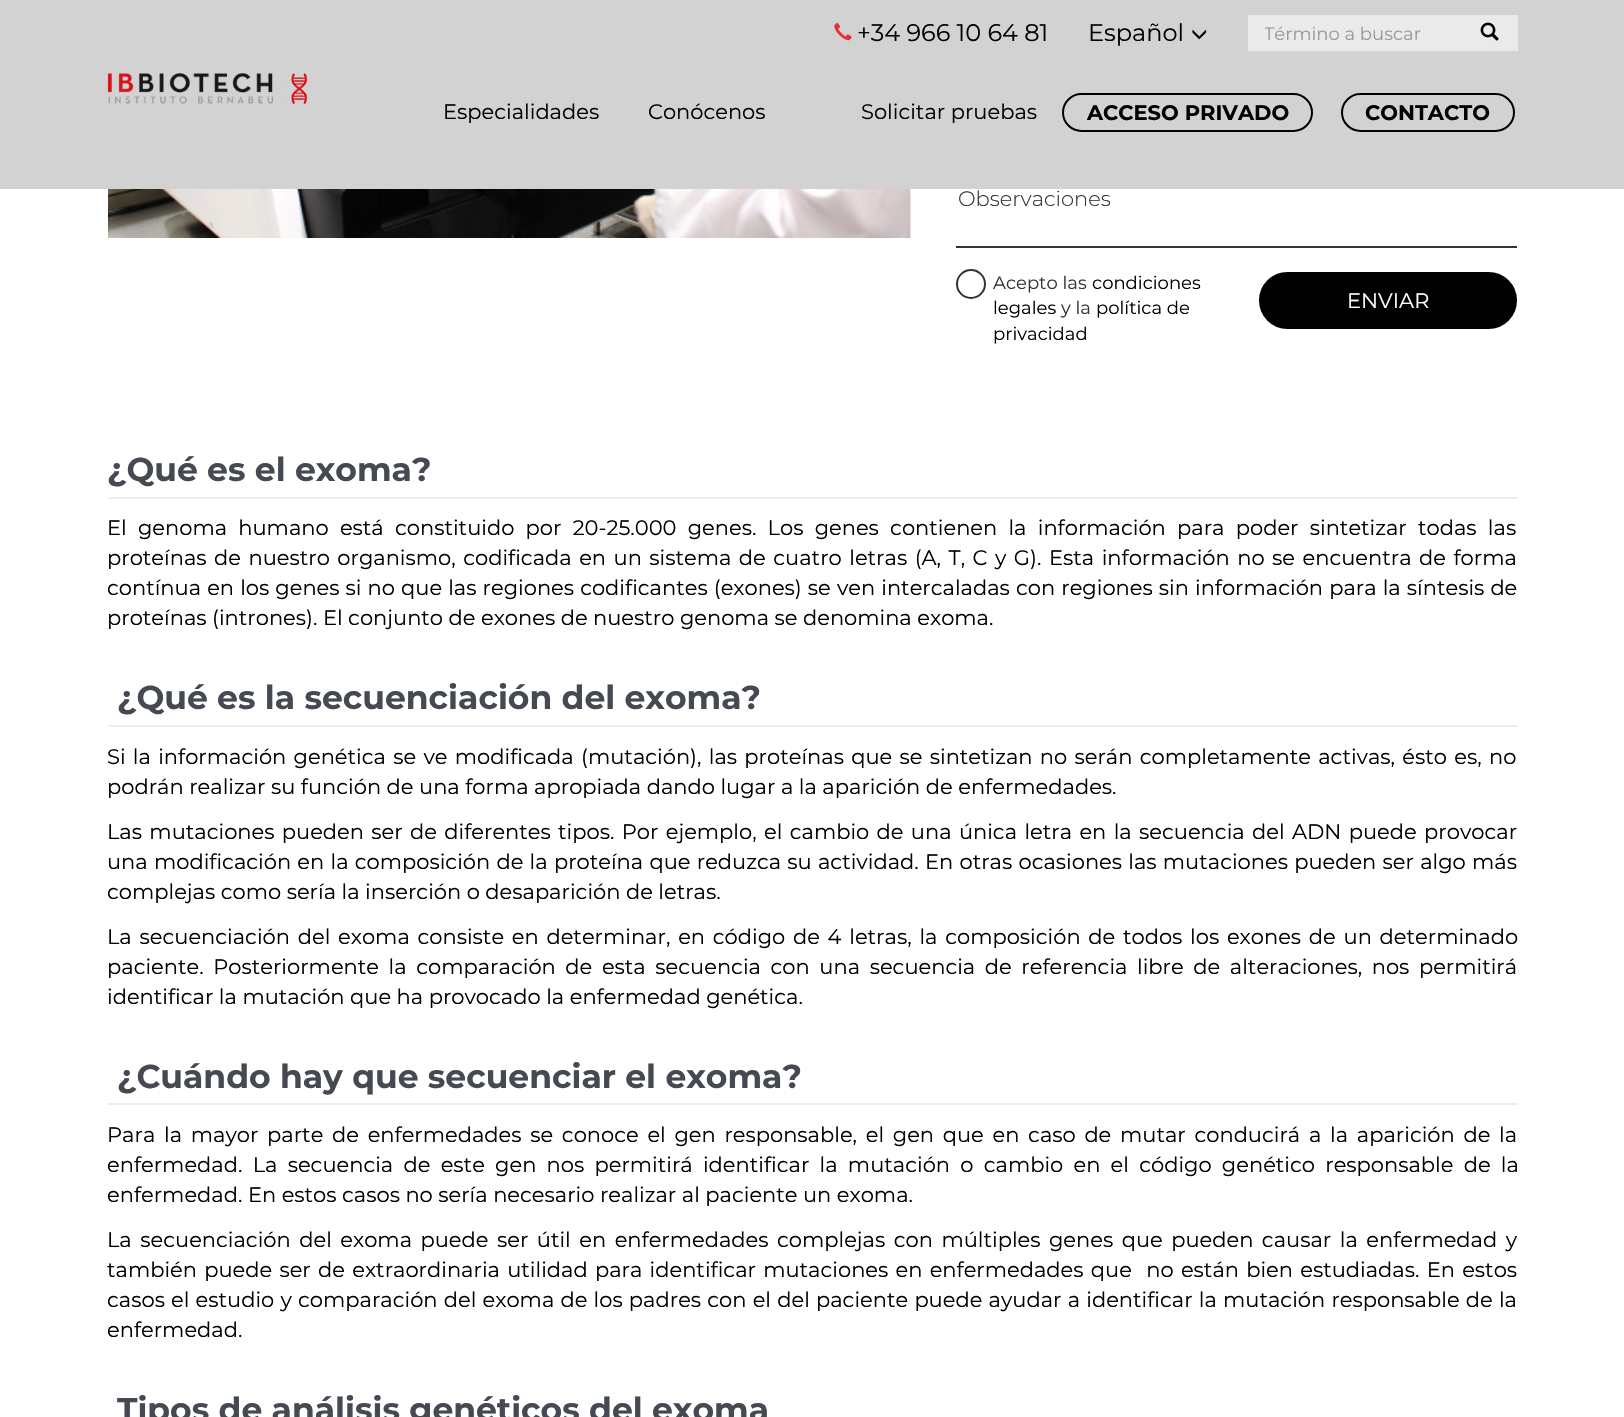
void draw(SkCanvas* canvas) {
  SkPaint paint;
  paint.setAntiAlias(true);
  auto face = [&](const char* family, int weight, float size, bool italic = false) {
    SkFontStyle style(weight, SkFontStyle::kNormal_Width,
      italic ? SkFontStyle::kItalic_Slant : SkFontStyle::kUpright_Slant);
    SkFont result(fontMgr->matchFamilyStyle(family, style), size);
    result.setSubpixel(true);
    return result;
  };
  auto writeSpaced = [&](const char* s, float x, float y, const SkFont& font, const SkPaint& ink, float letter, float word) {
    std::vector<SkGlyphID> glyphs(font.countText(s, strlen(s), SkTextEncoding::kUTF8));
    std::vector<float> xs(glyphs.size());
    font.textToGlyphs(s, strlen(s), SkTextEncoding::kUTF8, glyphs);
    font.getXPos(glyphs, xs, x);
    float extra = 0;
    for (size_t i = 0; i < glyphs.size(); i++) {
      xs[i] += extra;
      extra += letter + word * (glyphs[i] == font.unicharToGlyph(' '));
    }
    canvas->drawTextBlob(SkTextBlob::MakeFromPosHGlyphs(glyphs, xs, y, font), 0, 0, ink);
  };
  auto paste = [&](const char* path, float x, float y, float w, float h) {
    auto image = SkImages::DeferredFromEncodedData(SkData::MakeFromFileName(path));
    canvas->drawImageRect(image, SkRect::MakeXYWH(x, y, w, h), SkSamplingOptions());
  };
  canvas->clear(0xffffffff);
  paint.setColor(0xffd2d2d3);
  canvas->drawRect(SkRect::MakeXYWH(0, 0, 1624, 189), paint);
  paste("img/1.png", 834, 22, 18, 19);
  paste("img/2.png", 1192, 29, 15, 11);
  paint.setColor(0xffeaeaea);
  canvas->drawRect(SkRect::MakeXYWH(1248, 15, 270, 36), paint);
  paste("img/3.png", 1480, 22, 19, 19);
  paste("img/4.png", 107, 73, 201, 32);
  paint.setStroke(true);
  paint.setStrokeWidth(2);
  paint.setColor(0xff000000);
  canvas->drawRoundRect(SkRect::MakeXYWH(1063, 94, 249, 37), 18.5f, 18.5f, paint);
  canvas->drawRoundRect(SkRect::MakeXYWH(1342, 94, 172, 37), 18.5f, 18.5f, paint);
  paste("img/5.png", 108, 189, 803, 49);
  paint.setStroke(false);
  paint.setColor(0xff333333);
  canvas->drawRect(SkRect::MakeXYWH(956, 246, 561, 2), paint);
  paint.setStroke(true);
  canvas->drawCircle(971, 284, 14, paint);
  paint.setStroke(false);
  paint.setColor(0xff000000);
  canvas->drawRoundRect(SkRect::MakeXYWH(1260, 273, 256, 55), 27.5f, 27.5f, paint);
  paint.setStroke(true);
  canvas->drawRoundRect(SkRect::MakeXYWH(1260, 273, 256, 55), 27.5f, 27.5f, paint);
  paint.setStroke(false);
  {
    const struct { float x, y, w, h; SkColor color; } items[] = {
      {108, 497, 1410, 2, 0xffededed},
      {108, 725, 1410, 2, 0xffededed},
      {108, 1103, 1410, 2, 0xffededed},
    };
    for (auto [x, y, w, h, color] : items) {
      paint.setColor(color);
      canvas->drawRect(SkRect::MakeXYWH(x, y, w, h), paint);
    }
  }
  auto f0 = face("Montserrat", 400, 24);
  paint.setColor(0xff000000);
  canvas->drawString("+34 966 10 64 81", 857, 41, f0, paint);
  canvas->drawString("Español", 1088, 41, f0, paint);
  canvas->save();
  canvas->clipRect(SkRect::MakeXYWH(1265, 23, 181, 22));
  auto f1 = face("Montserrat", 400, 18);
  paint.setColor(0xff999999);
  canvas->drawString("Término a buscar", 1264, 40, f1, paint);
  canvas->restore();
  auto f2 = face("Montserrat", 400, 21);
  paint.setColor(0xff000000);
  {
    const struct { const char* s; float x, y; } items[] = {
      {"Especialidades", 443, 119},
      {"Conócenos", 648, 119},
      {"Solicitar pruebas", 861, 119},
    };
    for (auto [s, x, y] : items) {
      canvas->drawString(s, x, y, f2, paint);
    }
  }
  auto f3 = face("Montserrat", 700, 21);
  canvas->drawString("ACCESO PRIVADO", 1087, 120, f3, paint);
  canvas->drawString("CONTACTO", 1365, 120, f3, paint);
  auto f4 = face("Montserrat", 300, 21);
  paint.setColor(0xff333333);
  canvas->drawString("Observaciones", 958, 206, f4, paint);
  canvas->drawString("Acepto las", 993, 289, f1, paint);
  paint.setColor(0xff000000);
  canvas->drawString("condiciones", 1092, 289, f1, paint);
  canvas->drawString("legales", 993, 314, f1, paint);
  paint.setColor(0xff333333);
  canvas->drawString("y la", 1061, 314, f1, paint);
  paint.setColor(0xff000000);
  canvas->drawString("política de", 1096, 314, f1, paint);
  canvas->drawString("privacidad", 993, 340, f1, paint);
  paint.setColor(0xffffffff);
  canvas->drawString("ENVIAR", 1347, 308, f2, paint);
  auto f5 = face("Montserrat", 700, 33);
  paint.setColor(0xff454951);
  canvas->drawString("¿Qué es el exoma?", 107, 481, f5, paint);
  paint.setColor(0xff000000);
  writeSpaced("El genoma humano está constituido por 20-25.000 genes. Los genes contienen la información para poder sintetizar todas las", 107, 535, f2, paint, 0, 5.75f);
  writeSpaced("proteínas de nuestro organismo, codificada en un sistema de cuatro letras (A, T, C y G). Esta información no se encuentra de forma", 107, 565, f2, paint, 0, 2);
  writeSpaced("contínua en los genes si no que las regiones codificantes (exones) se ven intercaladas con regiones sin información para la síntesis de", 107, 595, f2, paint, 0, 0.6f);
  canvas->drawString("proteínas (intrones). El conjunto de exones de nuestro genoma se denomina exoma.", 107, 625, f2, paint);
  paint.setColor(0xff454951);
  canvas->drawString("¿Qué es la secuenciación del exoma?", 117, 709, f5, paint);
  paint.setColor(0xff000000);
  writeSpaced("Si la información genética se ve modificada (mutación), las proteínas que se sintetizan no serán completamente activas, ésto es, no", 107, 764, f2, paint, 0, 1.8f);
  canvas->drawString("podrán realizar su función de una forma apropiada dando lugar a la aparición de enfermedades.", 107, 794, f2, paint);
  writeSpaced("Las mutaciones pueden ser de diferentes tipos. Por ejemplo, el cambio de una única letra en la secuencia del ADN puede provocar", 107, 839, f2, paint, 0, 1.85f);
  writeSpaced("una modificación en la composición de la proteína que reduzca su actividad. En otras ocasiones las mutaciones pueden ser algo más", 107, 869, f2, paint, 0, 0.75f);
  canvas->drawString("complejas como sería la inserción o desaparición de letras.", 107, 899, f2, paint);
  writeSpaced("La secuenciación del exoma consiste en determinar, en código de 4 letras, la composición de todos los exones de un determinado", 107, 944, f2, paint, 0, 2.25f);
  writeSpaced("paciente. Posteriormente la comparación de esta secuencia con una secuencia de referencia libre de alteraciones, nos permitirá", 107, 974, f2, paint, 0, 4.1f);
  canvas->drawString("identificar la mutación que ha provocado la enfermedad genética.", 107, 1004, f2, paint);
  paint.setColor(0xff454951);
  canvas->drawString("¿Cuándo hay que secuenciar el exoma?", 117, 1088, f5, paint);
  paint.setColor(0xff000000);
  writeSpaced("Para la mayor parte de enfermedades se conoce el gen responsable, el gen que en caso de mutar conducirá a la aparición de la", 107, 1142, f2, paint, 0, 3.2f);
  writeSpaced("enfermedad. La secuencia de este gen nos permitirá identificar la mutación o cambio en el código genético responsable de la", 107, 1172, f2, paint, 0, 4.75f);
  canvas->drawString("enfermedad. En estos casos no sería necesario realizar al paciente un exoma.", 107, 1202, f2, paint);
  writeSpaced("La secuenciación del exoma puede ser útil en enfermedades complejas con múltiples genes que pueden causar la enfermedad y", 107, 1247, f2, paint, 0, 3);
  writeSpaced("también puede ser de extraordinaria utilidad para identificar mutaciones en enfermedades que  no están bien estudiadas. En estos", 107, 1277, f2, paint, 0, 1.75f);
  writeSpaced("casos el estudio y comparación del exoma de los padres con el del paciente puede ayudar a identificar la mutación responsable de la", 107, 1307, f2, paint, 0, 0.7f);
  canvas->drawString("enfermedad.", 107, 1337, f2, paint);
  paint.setColor(0xff454951);
  canvas->drawString("Tipos de análisis genéticos del exoma", 117, 1421, f5, paint);
}
